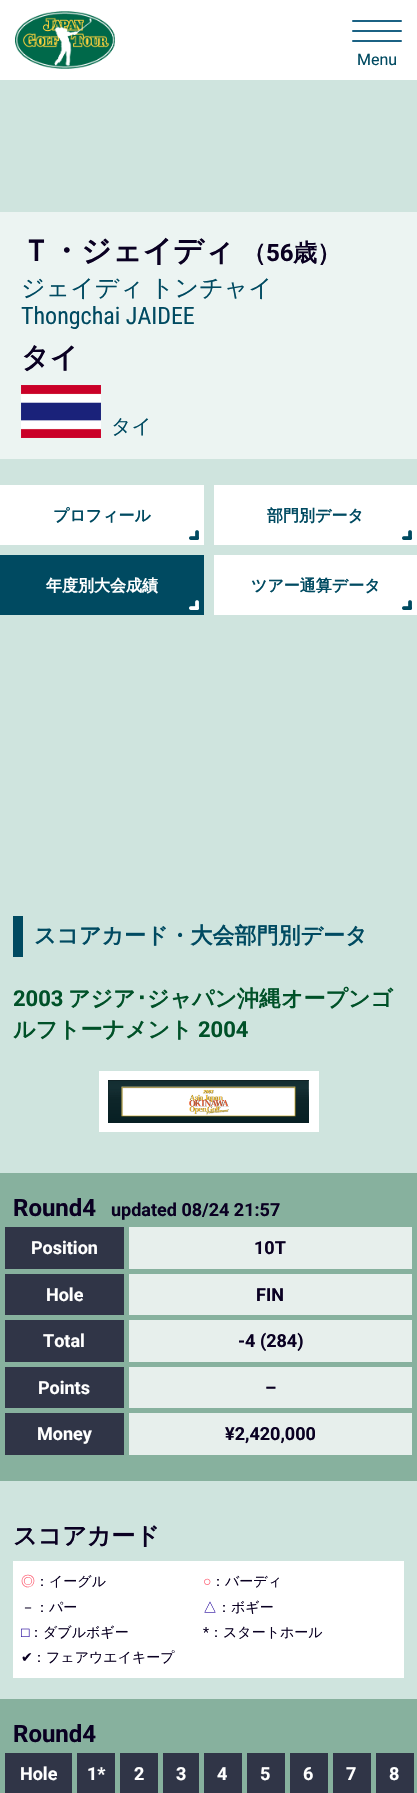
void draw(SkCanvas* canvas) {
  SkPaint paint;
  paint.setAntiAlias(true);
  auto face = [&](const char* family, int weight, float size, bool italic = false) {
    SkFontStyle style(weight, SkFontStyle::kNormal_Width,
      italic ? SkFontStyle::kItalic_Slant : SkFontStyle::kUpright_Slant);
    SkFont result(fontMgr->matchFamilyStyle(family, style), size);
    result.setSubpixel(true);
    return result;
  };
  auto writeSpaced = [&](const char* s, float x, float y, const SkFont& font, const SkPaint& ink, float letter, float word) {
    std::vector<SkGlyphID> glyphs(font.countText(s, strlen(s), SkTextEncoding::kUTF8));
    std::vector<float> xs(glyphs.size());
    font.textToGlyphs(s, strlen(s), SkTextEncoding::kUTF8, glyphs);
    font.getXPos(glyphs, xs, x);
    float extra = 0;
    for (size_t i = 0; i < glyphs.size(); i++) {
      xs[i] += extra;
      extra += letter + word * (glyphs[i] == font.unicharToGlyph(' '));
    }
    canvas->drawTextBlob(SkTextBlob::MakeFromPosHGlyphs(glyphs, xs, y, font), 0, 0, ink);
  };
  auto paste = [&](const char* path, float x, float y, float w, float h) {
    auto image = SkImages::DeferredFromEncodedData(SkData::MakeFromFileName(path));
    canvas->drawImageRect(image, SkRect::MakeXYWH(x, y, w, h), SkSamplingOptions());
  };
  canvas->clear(0xffcfe4de);
  paint.setColor(0xffffffff);
  canvas->drawRect(SkRect::MakeXYWH(0, 0, 417, 80), paint);
  paste("img/1.png", 15, 11, 100, 58);
  paint.setColor(0xff1b6284);
  canvas->drawRoundRect(SkRect::MakeXYWH(352, 20, 50, 2), 1, 1, paint);
  canvas->drawRoundRect(SkRect::MakeXYWH(352, 30, 50, 2), 1, 1, paint);
  canvas->drawRoundRect(SkRect::MakeXYWH(352, 40, 50, 2), 1, 1, paint);
  paint.setColor(0xffecf4f2);
  canvas->drawRect(SkRect::MakeXYWH(0, 212, 417, 247), paint);
  paste("img/2.png", 21, 385, 80, 53);
  paint.setColor(0xffffffff);
  canvas->drawRect(SkRect::MakeXYWH(0, 485, 204, 60), paint);
  paste("img/3.png", 189, 530, 10, 10);
  canvas->drawRect(SkRect::MakeXYWH(214, 485, 203, 60), paint);
  paste("img/3.png", 402, 530, 10, 10);
  paint.setColor(0xff004a61);
  canvas->drawRect(SkRect::MakeXYWH(0, 555, 204, 60), paint);
  paste("img/4.png", 189, 600, 10, 10);
  paint.setColor(0xffffffff);
  canvas->drawRect(SkRect::MakeXYWH(214, 555, 203, 60), paint);
  paste("img/3.png", 402, 600, 10, 10);
  paint.setColor(0xff004a61);
  canvas->drawRect(SkRect::MakeXYWH(13, 916, 10, 41), paint);
  paint.setColor(0xffffffff);
  canvas->drawRect(SkRect::MakeXYWH(99, 1071, 220, 61), paint);
  paste("img/5.png", 108, 1080, 201, 43);
  {
    const struct { float x, y, w, h; SkColor color; } items[] = {
      {0, 1173, 417, 308, 0xff87b19e},
      {5, 1227, 119, 42, 0xff303547},
      {129, 1227, 283, 42, 0xffe7efec},
      {5, 1274, 119, 41, 0xff303547},
      {129, 1274, 283, 41, 0xffe7efec},
      {5, 1320, 119, 42, 0xff303547},
      {129, 1320, 283, 42, 0xffe7efec},
      {5, 1367, 119, 41, 0xff303547},
      {129, 1367, 283, 41, 0xffe7efec},
      {5, 1413, 119, 42, 0xff303547},
      {129, 1413, 283, 42, 0xffe7efec},
      {13, 1561, 391, 117, 0xffffffff},
      {0, 1699, 417, 94, 0xff87b19e},
      {5, 1753, 67, 40, 0xff303547},
      {77, 1753, 38, 40, 0xff303547},
      {120, 1753, 38, 40, 0xff303547},
      {163, 1753, 36, 40, 0xff303547},
      {204, 1753, 38, 40, 0xff303547},
      {247, 1753, 38, 40, 0xff303547},
      {290, 1753, 38, 40, 0xff303547},
      {333, 1753, 38, 40, 0xff303547},
      {376, 1753, 38, 40, 0xff303547},
    };
    for (auto [x, y, w, h, color] : items) {
      paint.setColor(color);
      canvas->drawRect(SkRect::MakeXYWH(x, y, w, h), paint);
    }
  }
  auto f0 = face("Roboto", 400, 16);
  paint.setColor(0xff004a61);
  canvas->drawString("Menu", 357, 65, f0, paint);
  auto f1 = face("WenQuanYi Zen Hei", 700, 30);
  paint.setColor(0xff0a0022);
  canvas->drawString("Ｔ・ジェイディ", 21, 261, f1, paint);
  auto f2 = face("WenQuanYi Zen Hei", 700, 24);
  canvas->drawString("（", 242, 261, f2, paint);
  auto f3 = face("Roboto", 700, 24);
  canvas->drawString("56", 266, 261, f3, paint);
  canvas->drawString("歳）", 293, 261, f2, paint);
  auto f4 = face("WenQuanYi Zen Hei", 500, 24);
  paint.setColor(0xff004a61);
  writeSpaced("ジェイディ トンチャイ", 21, 296, f4, paint, 0, -1);
  auto f5 = face("Roboto Condensed", 400, 24);
  canvas->drawString("Thongchai JAIDEE", 21, 324, f5, paint);
  auto f6 = face("WenQuanYi Zen Hei", 700, 28);
  paint.setColor(0xff0a0022);
  canvas->drawString("タイ", 21, 367, f6, paint);
  auto f7 = face("WenQuanYi Zen Hei", 500, 20);
  paint.setColor(0xff004a61);
  canvas->drawString("タイ", 111, 433, f7, paint);
  auto f8 = face("WenQuanYi Zen Hei", 700, 16);
  canvas->drawString("プロフィール", 53, 521, f8, paint);
  canvas->drawString("部門別データ", 267, 521, f8, paint);
  paint.setColor(0xffffffff);
  canvas->drawString("年度別大会成績", 46, 591, f8, paint);
  paint.setColor(0xff004a61);
  canvas->drawString("ツアー通算データ", 251, 591, f8, paint);
  auto f9 = face("WenQuanYi Zen Hei", 700, 22);
  canvas->drawString("スコアカード・大会部門別データ", 34, 943, f9, paint);
  auto f10 = face("Roboto", 700, 22);
  paint.setColor(0xff005128);
  canvas->drawString("2003", 13, 1006, f10, paint);
  canvas->drawString("アジア", 68, 1006, f9, paint);
  auto f11 = face("IPAPGothic", 700, 22);
  canvas->drawString("･", 136, 1006, f11, paint);
  canvas->drawString("ジャパン沖縄オープンゴ", 147, 1006, f9, paint);
  canvas->drawString("ルフトーナメント", 13, 1037, f9, paint);
  canvas->drawString("2004", 198, 1037, f10, paint);
  paint.setColor(0xff0a0022);
  canvas->drawString("Round4", 13, 1216, f3, paint);
  auto f12 = face("Roboto", 700, 18);
  canvas->drawString("updated 08/24 21:57", 111, 1216, f12, paint);
  paint.setColor(0xffffffff);
  canvas->drawString("Position", 31, 1254, f12, paint);
  paint.setColor(0xff0a0022);
  canvas->drawString("10T", 254, 1254, f12, paint);
  paint.setColor(0xffffffff);
  canvas->drawString("Hole", 46, 1301, f12, paint);
  paint.setColor(0xff0a0022);
  canvas->drawString("FIN", 256, 1301, f12, paint);
  paint.setColor(0xffffffff);
  canvas->drawString("Total", 43, 1347, f12, paint);
  paint.setColor(0xff0a0022);
  canvas->drawString("-4 (284)", 238, 1347, f12, paint);
  paint.setColor(0xffffffff);
  canvas->drawString("Points", 38, 1394, f12, paint);
  paint.setColor(0xff0a0022);
  canvas->drawString("–", 265, 1394, f12, paint);
  paint.setColor(0xffffffff);
  canvas->drawString("Money", 37, 1440, f12, paint);
  paint.setColor(0xff0a0022);
  canvas->drawString("¥2,420,000", 225, 1440, f12, paint);
  canvas->drawString("スコアカード", 13, 1544, f2, paint);
  auto f13 = face("WenQuanYi Zen Hei", 500, 14);
  paint.setColor(0xfffe5a6f);
  canvas->drawString("◎", 21, 1586, f13, paint);
  paint.setColor(0xff0a0022);
  canvas->drawString("：イーグル", 35, 1586, f13, paint);
  auto f14 = face("Liberation Sans", 400, 14);
  paint.setColor(0xfffe5a6f);
  canvas->drawString("○", 203, 1586, f14, paint);
  paint.setColor(0xff0a0022);
  canvas->drawString("：バーディ", 211, 1586, f13, paint);
  canvas->drawString("－：パー", 21, 1612, f13, paint);
  paint.setColor(0xff1d0099);
  canvas->drawString("△", 203, 1612, f13, paint);
  paint.setColor(0xff0a0022);
  canvas->drawString("：ボギー", 217, 1612, f13, paint);
  paint.setColor(0xff1d0099);
  canvas->drawString("□", 21, 1637, f14, paint);
  paint.setColor(0xff0a0022);
  canvas->drawString("：ダブルボギー", 29, 1637, f13, paint);
  auto f15 = face("Roboto", 400, 14);
  canvas->drawString("*", 203, 1637, f15, paint);
  canvas->drawString("：スタートホール", 209, 1637, f13, paint);
  auto f16 = face("DejaVu Sans", 400, 14);
  canvas->drawString("✔", 21, 1662, f16, paint);
  canvas->drawString("：フェアウエイキープ", 32, 1662, f13, paint);
  canvas->drawString("Round4", 13, 1742, f3, paint);
  paint.setColor(0xffffffff);
  {
    const struct { const char* s; float x, y; } items[] = {
      {"Hole", 20, 1780},
      {"1*", 87, 1780},
      {"2", 134, 1780},
      {"3", 176, 1780},
      {"4", 217, 1780},
      {"5", 260, 1780},
      {"6", 303, 1780},
      {"7", 346, 1780},
      {"8", 389, 1780},
    };
    for (auto [s, x, y] : items) {
      canvas->drawString(s, x, y, f12, paint);
    }
  }
}
